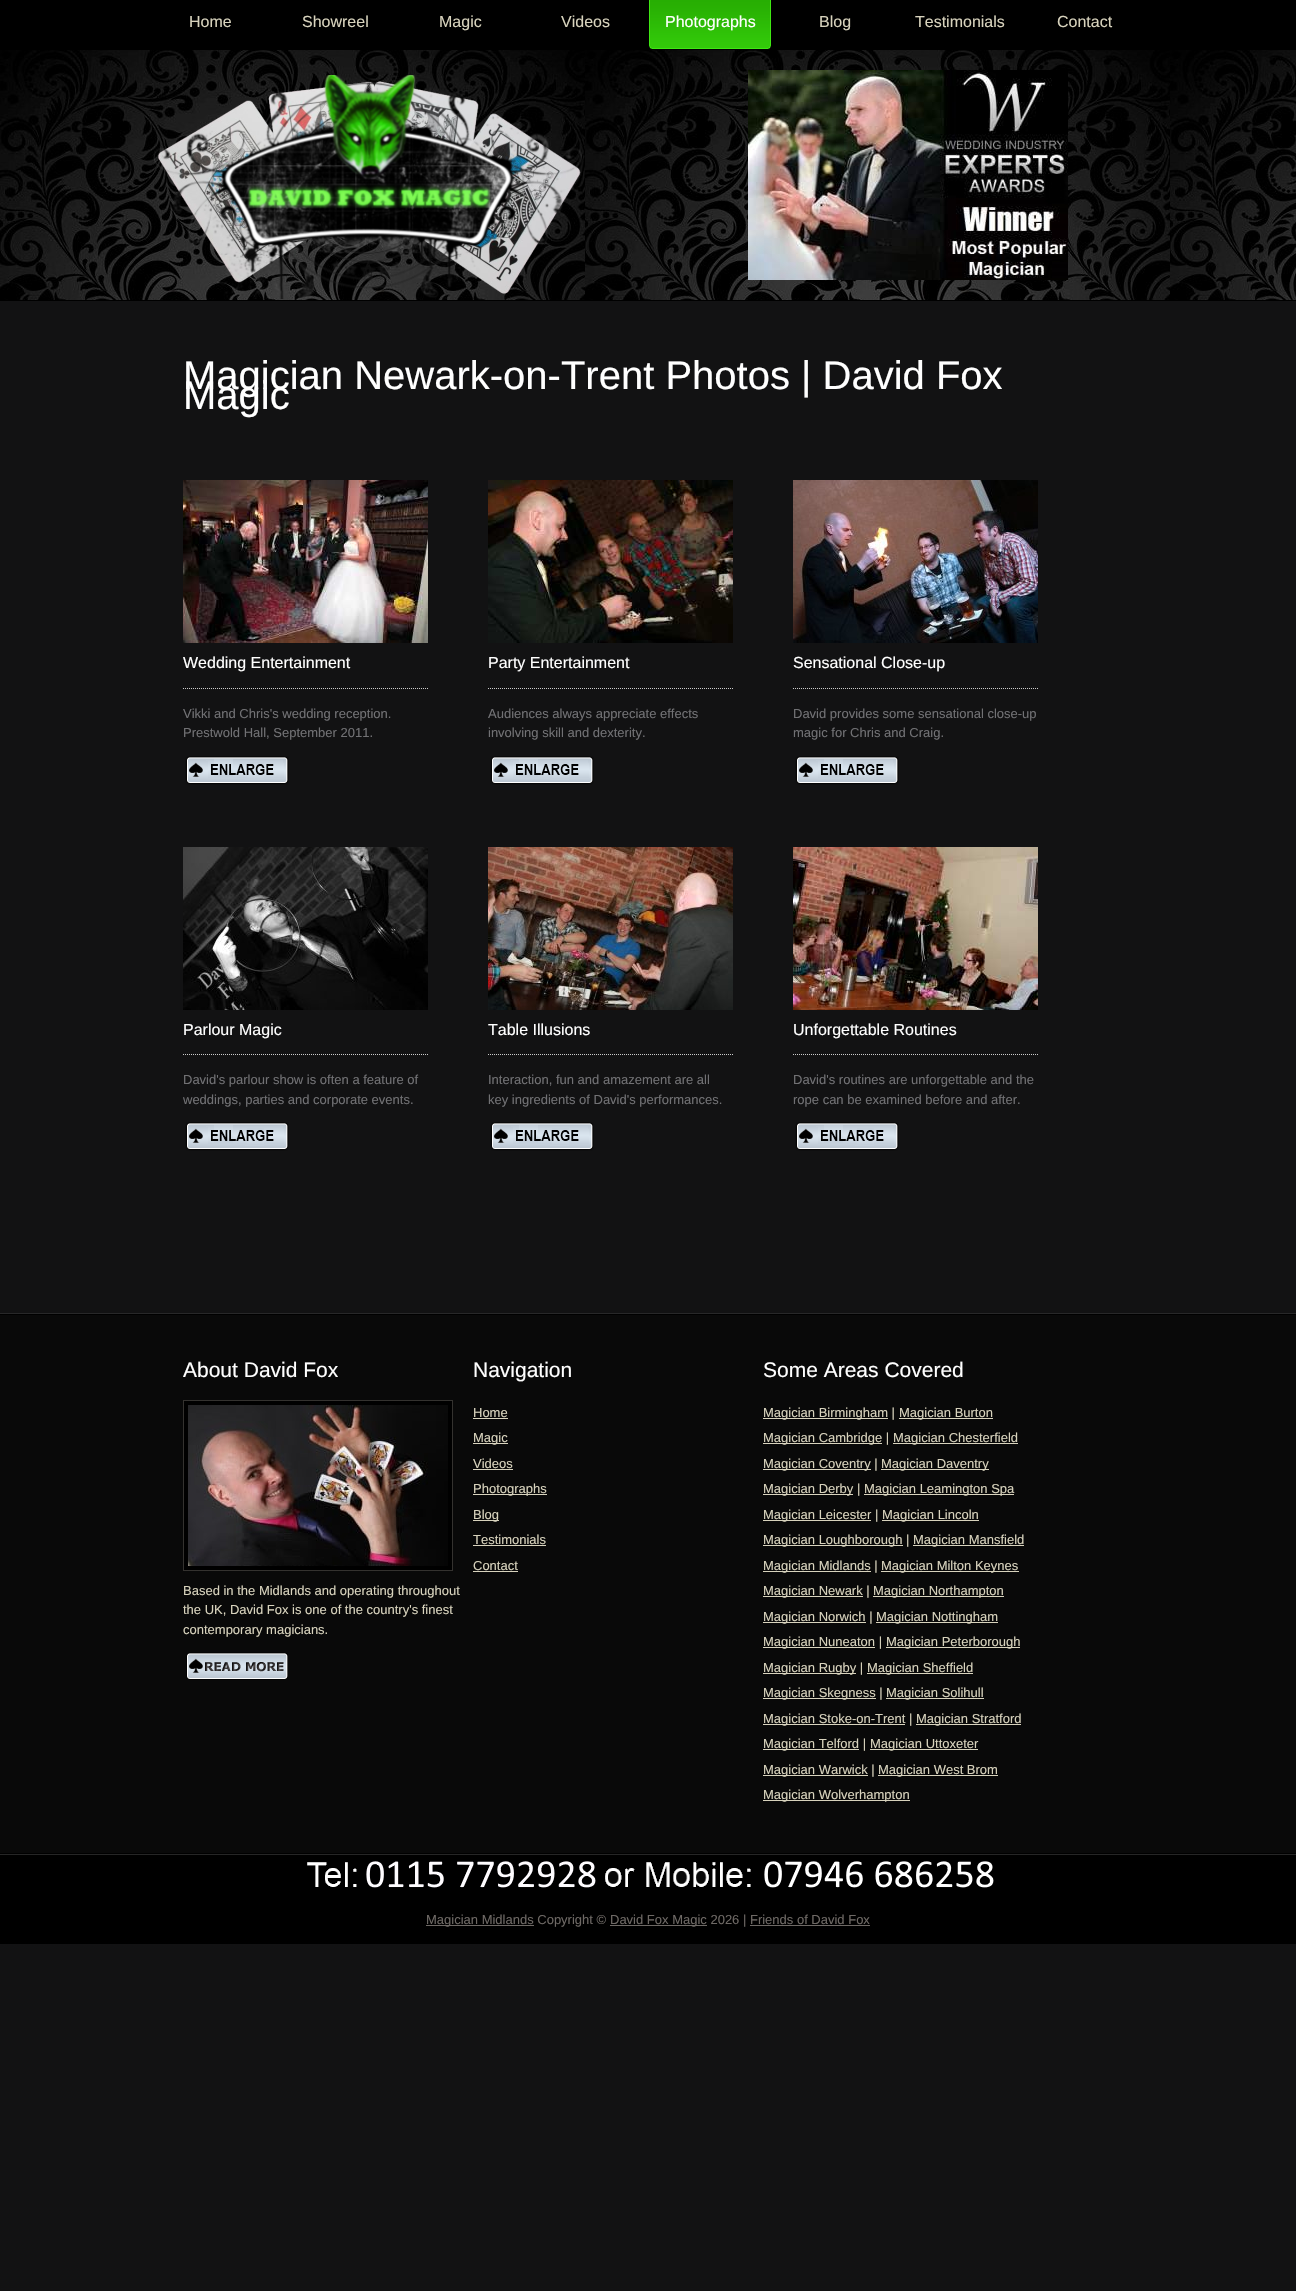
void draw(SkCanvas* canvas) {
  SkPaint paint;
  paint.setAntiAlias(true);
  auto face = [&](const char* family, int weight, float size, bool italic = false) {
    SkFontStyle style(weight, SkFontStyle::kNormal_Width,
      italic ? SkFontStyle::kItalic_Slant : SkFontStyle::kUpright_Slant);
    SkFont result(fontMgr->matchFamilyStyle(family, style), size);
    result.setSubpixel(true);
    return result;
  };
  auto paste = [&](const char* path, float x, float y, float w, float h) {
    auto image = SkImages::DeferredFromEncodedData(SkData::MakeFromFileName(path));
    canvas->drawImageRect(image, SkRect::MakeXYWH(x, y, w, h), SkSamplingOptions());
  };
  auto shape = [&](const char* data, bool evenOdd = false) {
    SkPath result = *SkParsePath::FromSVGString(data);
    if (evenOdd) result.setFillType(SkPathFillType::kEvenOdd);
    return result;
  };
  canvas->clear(0xff121213);
  paint.setColor(0xff000000);
  canvas->drawRect(SkRect::MakeXYWH(0, 0, 1296, 50), paint);
  paste("img/1.png", 649, 0, 122, 49);
  paste("img/2.png", 0, 50, 1296, 250);
  canvas->drawRect(SkRect::MakeXYWH(0, 300, 1296, 1), paint);
  paste("img/3.png", 153, 75, 429, 224);
  paste("img/4.png", 748, 70, 320, 210);
  paint.setColor(0xff282829);
  canvas->drawRect(SkRect::MakeXYWH(0, 1313, 1296, 1), paint);
  paste("img/5.png", 183, 480, 245, 163);
  paint.setStroke(true);
  paint.setStrokeWidth(1);
  paint.setColor(0xffcccccc);
  paint.setPathEffect(SkDashPathEffect::Make({{1, 1}}, 0));
  canvas->drawPath(shape("M183 688.5H428"), paint);
  paint.setPathEffect(nullptr);
  paste("img/6.png", 185, 756, 104, 29);
  paste("img/7.png", 488, 480, 245, 163);
  paint.setPathEffect(SkDashPathEffect::Make({{1, 1}}, 0));
  canvas->drawPath(shape("M488 688.5H733"), paint);
  paint.setPathEffect(nullptr);
  paste("img/6.png", 490, 756, 104, 29);
  paste("img/8.png", 793, 480, 245, 163);
  paint.setPathEffect(SkDashPathEffect::Make({{1, 1}}, 0));
  canvas->drawPath(shape("M793 688.5H1038"), paint);
  paint.setPathEffect(nullptr);
  paste("img/6.png", 795, 756, 104, 29);
  paste("img/9.png", 183, 847, 245, 163);
  paint.setPathEffect(SkDashPathEffect::Make({{1, 1}}, 0));
  canvas->drawPath(shape("M183 1054.5H428"), paint);
  paint.setPathEffect(nullptr);
  paste("img/6.png", 185, 1122, 104, 29);
  paste("img/10.png", 488, 847, 245, 163);
  paint.setPathEffect(SkDashPathEffect::Make({{1, 1}}, 0));
  canvas->drawPath(shape("M488 1054.5H733"), paint);
  paint.setPathEffect(nullptr);
  paste("img/6.png", 490, 1122, 104, 29);
  paste("img/11.png", 793, 847, 245, 163);
  paint.setPathEffect(SkDashPathEffect::Make({{1, 1}}, 0));
  canvas->drawPath(shape("M793 1054.5H1038"), paint);
  paint.setPathEffect(nullptr);
  paste("img/6.png", 795, 1122, 104, 29);
  paint.setStroke(false);
  {
    const struct { float x, y, w, h; SkColor color; } items[] = {
      {0, 1315, 1296, 538, 0xff090909},
      {0, 1314, 1296, 1, 0xff000000},
      {0, 1853, 1296, 1, 0xff000000},
    };
    for (auto [x, y, w, h, color] : items) {
      paint.setColor(color);
      canvas->drawRect(SkRect::MakeXYWH(x, y, w, h), paint);
    }
  }
  canvas->drawRect(SkRect::MakeXYWH(183.5f, 1400.5f, 269, 170), paint);
  paint.setStroke(true);
  paint.setColor(0xff34322f);
  canvas->drawRect(SkRect::MakeXYWH(183.5f, 1400.5f, 269, 170), paint);
  paste("img/12.png", 188, 1405, 260, 161);
  paste("img/13.png", 186, 1652, 102, 28);
  paint.setStroke(false);
  {
    const struct { float x, y, w, h; SkColor color; } items[] = {
      {473, 1418, 35, 1, 0xffd8d3bd},
      {473, 1443, 35, 1, 0xffd8d3bd},
      {473, 1469, 40, 1, 0xffd8d3bd},
      {473, 1494, 74, 1, 0xffd8d3bd},
      {473, 1520, 26, 1, 0xffd8d3bd},
      {473, 1545, 73, 1, 0xffd8d3bd},
      {473, 1571, 45, 1, 0xffd8d3bd},
      {763, 1418, 125, 1, 0xffd8d3bd},
      {899, 1418, 94, 1, 0xffd8d3bd},
      {763, 1443, 119, 1, 0xffd8d3bd},
      {893, 1443, 125, 1, 0xffd8d3bd},
      {763, 1469, 108, 1, 0xffd8d3bd},
      {881, 1469, 108, 1, 0xffd8d3bd},
      {763, 1494, 90, 1, 0xffd8d3bd},
      {864, 1494, 150, 1, 0xffd8d3bd},
      {763, 1520, 108, 1, 0xffd8d3bd},
      {882, 1520, 97, 1, 0xffd8d3bd},
      {763, 1545, 140, 1, 0xffd8d3bd},
      {913, 1545, 111, 1, 0xffd8d3bd},
      {763, 1571, 108, 1, 0xffd8d3bd},
      {881, 1571, 138, 1, 0xffd8d3bd},
      {763, 1596, 100, 1, 0xffd8d3bd},
      {873, 1596, 131, 1, 0xffd8d3bd},
      {763, 1622, 103, 1, 0xffd8d3bd},
      {876, 1622, 122, 1, 0xffd8d3bd},
      {763, 1647, 112, 1, 0xffd8d3bd},
      {886, 1647, 134, 1, 0xffd8d3bd},
      {763, 1673, 93, 1, 0xffd8d3bd},
      {867, 1673, 106, 1, 0xffd8d3bd},
      {763, 1698, 113, 1, 0xffd8d3bd},
      {886, 1698, 98, 1, 0xffd8d3bd},
      {763, 1724, 142, 1, 0xffd8d3bd},
      {916, 1724, 105, 1, 0xffd8d3bd},
      {763, 1749, 96, 1, 0xffd8d3bd},
      {870, 1749, 108, 1, 0xffd8d3bd},
      {763, 1775, 105, 1, 0xffd8d3bd},
      {878, 1775, 120, 1, 0xffd8d3bd},
      {763, 1800, 147, 1, 0xffd8d3bd},
      {0, 1855, 1296, 89, 0xff000000},
      {0, 1854, 1296, 1, 0xff262626},
    };
    for (auto [x, y, w, h, color] : items) {
      paint.setColor(color);
      canvas->drawRect(SkRect::MakeXYWH(x, y, w, h), paint);
    }
  }
  paste("img/14.png", 307, 1861, 687, 27);
  {
    const struct { float x, y, w, h; SkColor color; } items[] = {
      {426, 1925, 108, 1, 0xff6e6965},
      {610, 1925, 97, 1, 0xff6e6965},
      {750, 1925, 120, 1, 0xff6e6965},
    };
    for (auto [x, y, w, h, color] : items) {
      paint.setColor(color);
      canvas->drawRect(SkRect::MakeXYWH(x, y, w, h), paint);
    }
  }
  auto f0 = face("Liberation Sans", 400, 16);
  paint.setColor(0xffd8d3bd);
  {
    const struct { const char* s; float x, y; } items[] = {
      {"Home", 189, 27},
      {"Showreel", 302, 27},
      {"Magic", 439, 27},
      {"Videos", 561, 27},
    };
    for (auto [s, x, y] : items) {
      canvas->drawString(s, x, y, f0, paint);
    }
  }
  paint.setColor(0xffffffff);
  canvas->drawString("Photographs", 665, 27, f0, paint);
  paint.setColor(0xffd8d3bd);
  {
    const struct { const char* s; float x, y; } items[] = {
      {"Blog", 819, 27},
      {"Testimonials", 915, 27},
      {"Contact", 1057, 27},
    };
    for (auto [s, x, y] : items) {
      canvas->drawString(s, x, y, f0, paint);
    }
  }
  auto f1 = face("Liberation Sans", 400, 40);
  paint.setColor(0xffffffff);
  canvas->drawString("Magician Newark-on-Trent Photos | David Fox", 183, 389, f1, paint);
  canvas->drawString("Magic", 183, 409, f1, paint);
  canvas->drawString("Wedding Entertainment", 183, 668, f0, paint);
  auto f2 = face("Liberation Sans", 400, 13);
  paint.setColor(0xff717174);
  canvas->drawString("Vikki and Chris's wedding reception.", 183, 718, f2, paint);
  canvas->drawString("Prestwold Hall, September 2011.", 183, 737, f2, paint);
  paint.setColor(0xffffffff);
  canvas->drawString("Party Entertainment", 488, 668, f0, paint);
  paint.setColor(0xff717174);
  canvas->drawString("Audiences always appreciate effects", 488, 718, f2, paint);
  canvas->drawString("involving skill and dexterity.", 488, 737, f2, paint);
  paint.setColor(0xffffffff);
  canvas->drawString("Sensational Close-up", 793, 668, f0, paint);
  paint.setColor(0xff717174);
  canvas->drawString("David provides some sensational close-up", 793, 718, f2, paint);
  canvas->drawString("magic for Chris and Craig.", 793, 737, f2, paint);
  paint.setColor(0xffffffff);
  canvas->drawString("Parlour Magic", 183, 1035, f0, paint);
  paint.setColor(0xff717174);
  canvas->drawString("David's parlour show is often a feature of", 183, 1084, f2, paint);
  canvas->drawString("weddings, parties and corporate events.", 183, 1104, f2, paint);
  paint.setColor(0xffffffff);
  canvas->drawString("Table Illusions", 488, 1035, f0, paint);
  paint.setColor(0xff717174);
  canvas->drawString("Interaction, fun and amazement are all", 488, 1084, f2, paint);
  canvas->drawString("key ingredients of David's performances.", 488, 1104, f2, paint);
  paint.setColor(0xffffffff);
  canvas->drawString("Unforgettable Routines", 793, 1035, f0, paint);
  paint.setColor(0xff717174);
  canvas->drawString("David's routines are unforgettable and the", 793, 1084, f2, paint);
  canvas->drawString("rope can be examined before and after.", 793, 1104, f2, paint);
  auto f3 = face("Liberation Sans", 400, 21);
  paint.setColor(0xffffffff);
  canvas->drawString("About David Fox", 183, 1377, f3, paint);
  paint.setColor(0xffd8d3bd);
  {
    const struct { const char* s; float x, y; } items[] = {
      {"Based in the Midlands and operating throughout", 183, 1595},
      {"the UK, David Fox is one of the country's finest", 183, 1614},
      {"contemporary magicians.", 183, 1634},
    };
    for (auto [s, x, y] : items) {
      canvas->drawString(s, x, y, f2, paint);
    }
  }
  paint.setColor(0xffffffff);
  canvas->drawString("Navigation", 473, 1377, f3, paint);
  paint.setColor(0xffd8d3bd);
  {
    const struct { const char* s; float x, y; } items[] = {
      {"Home", 473, 1417},
      {"Magic", 473, 1442},
      {"Videos", 473, 1468},
      {"Photographs", 473, 1493},
      {"Blog", 473, 1519},
      {"Testimonials", 473, 1544},
      {"Contact", 473, 1570},
    };
    for (auto [s, x, y] : items) {
      canvas->drawString(s, x, y, f2, paint);
    }
  }
  paint.setColor(0xffffffff);
  canvas->drawString("Some Areas Covered", 763, 1377, f3, paint);
  paint.setColor(0xffd8d3bd);
  {
    const struct { const char* s; float x, y; } items[] = {
      {"Magician Birmingham |", 763, 1417},
      {"Magician Burton", 899, 1417},
      {"Magician Cambridge |", 763, 1442},
      {"Magician Chesterfield", 893, 1442},
      {"Magician Coventry |", 763, 1468},
      {"Magician Daventry", 881, 1468},
      {"Magician Derby |", 763, 1493},
      {"Magician Leamington Spa", 864, 1493},
      {"Magician Leicester |", 763, 1519},
      {"Magician Lincoln", 882, 1519},
      {"Magician Loughborough |", 763, 1544},
      {"Magician Mansfield", 913, 1544},
      {"Magician Midlands |", 763, 1570},
      {"Magician Milton Keynes", 881, 1570},
      {"Magician Newark |", 763, 1595},
      {"Magician Northampton", 873, 1595},
      {"Magician Norwich |", 763, 1621},
      {"Magician Nottingham", 876, 1621},
      {"Magician Nuneaton |", 763, 1646},
      {"Magician Peterborough", 886, 1646},
      {"Magician Rugby |", 763, 1672},
      {"Magician Sheffield", 867, 1672},
      {"Magician Skegness |", 763, 1697},
      {"Magician Solihull", 886, 1697},
      {"Magician Stoke-on-Trent |", 763, 1723},
      {"Magician Stratford", 916, 1723},
      {"Magician Telford |", 763, 1748},
      {"Magician Uttoxeter", 870, 1748},
      {"Magician Warwick |", 763, 1774},
      {"Magician West Brom", 878, 1774},
      {"Magician Wolverhampton", 763, 1799},
    };
    for (auto [s, x, y] : items) {
      canvas->drawString(s, x, y, f2, paint);
    }
  }
  paint.setColor(0xff6e6965);
  canvas->drawString("Magician Midlands Copyright ©", 426, 1924, f2, paint);
  canvas->drawString("David Fox Magic 2026 | Friends of David Fox", 610, 1924, f2, paint);
}
